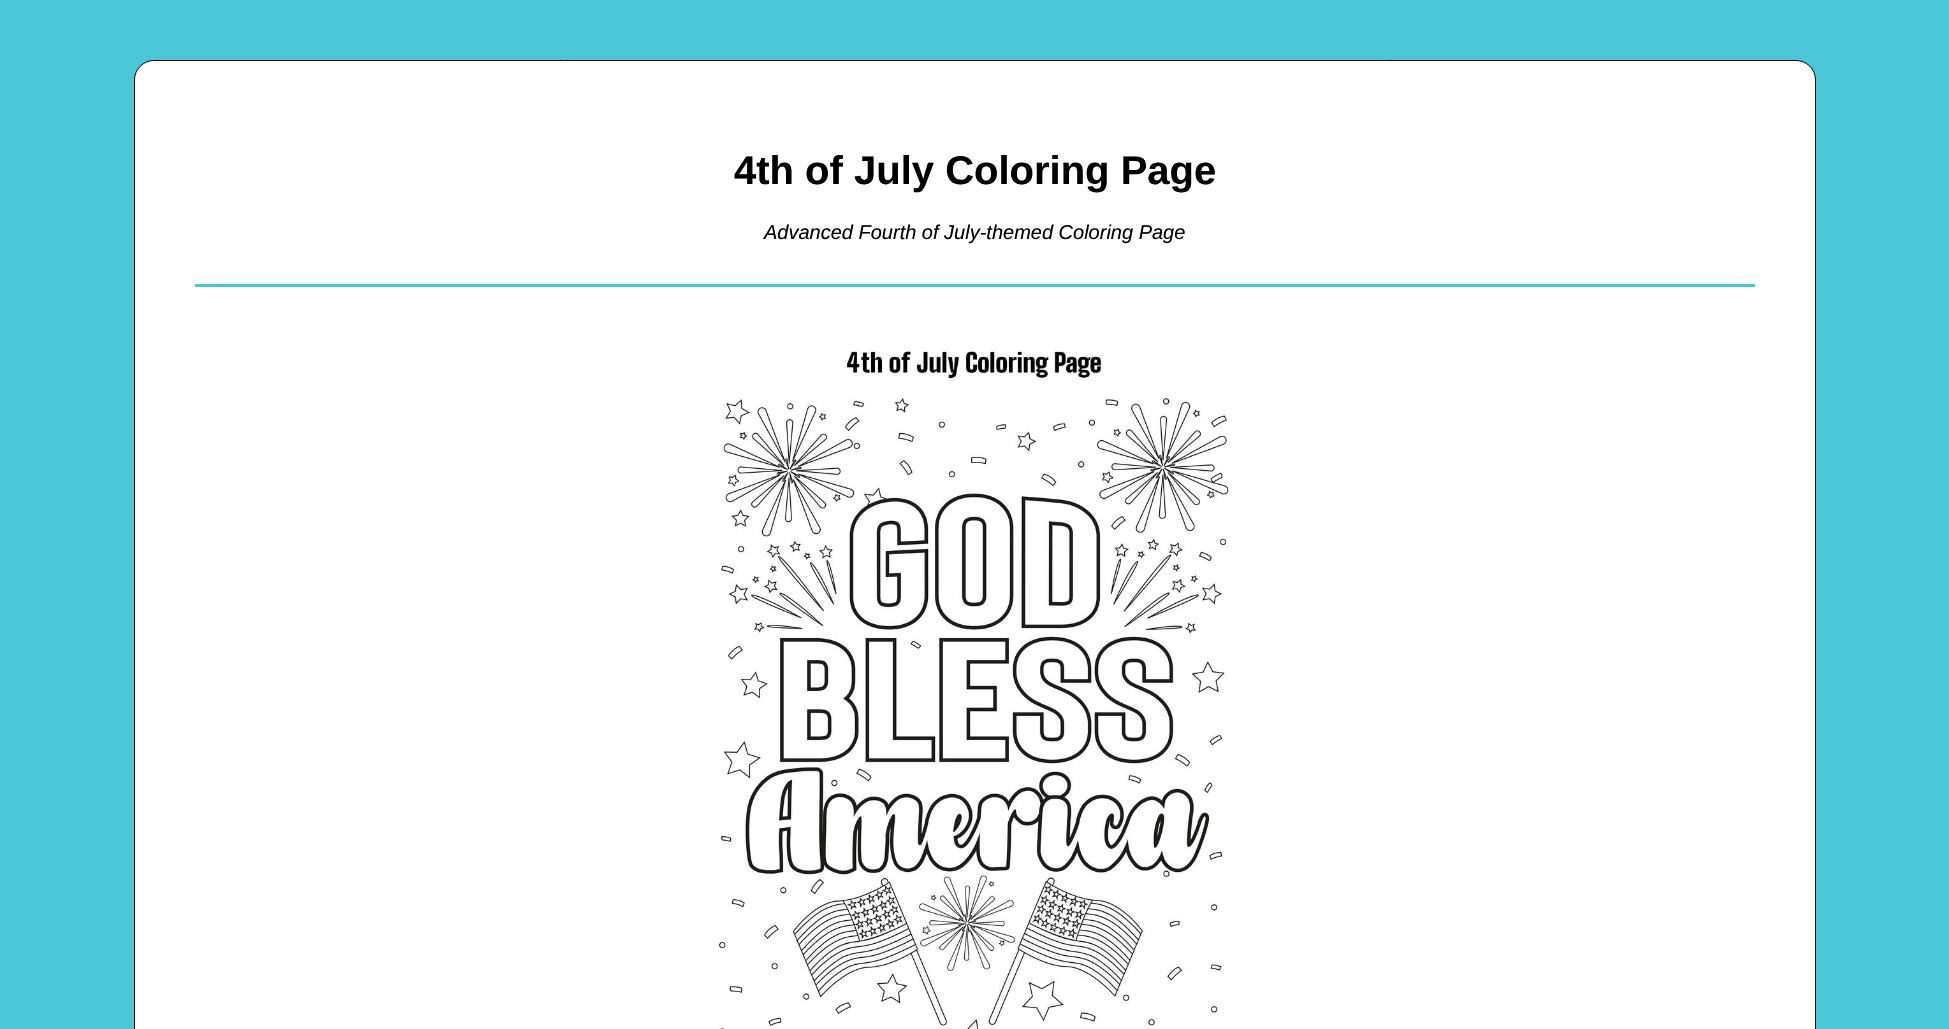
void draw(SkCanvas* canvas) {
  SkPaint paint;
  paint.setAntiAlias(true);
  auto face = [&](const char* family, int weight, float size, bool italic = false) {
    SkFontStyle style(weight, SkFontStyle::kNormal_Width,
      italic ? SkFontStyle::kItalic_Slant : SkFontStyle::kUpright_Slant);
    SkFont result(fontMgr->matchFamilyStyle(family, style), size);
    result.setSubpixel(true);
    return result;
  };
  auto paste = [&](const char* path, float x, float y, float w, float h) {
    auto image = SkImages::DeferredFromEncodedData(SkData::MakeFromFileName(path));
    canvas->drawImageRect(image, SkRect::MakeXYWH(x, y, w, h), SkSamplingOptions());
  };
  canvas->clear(0xff4ac6d7);
  paint.setColor(0xffffffff);
  canvas->drawRoundRect(SkRect::MakeXYWH(134.5f, 60.5f, 1681, 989), 19.5f, 19.5f, paint);
  paint.setStroke(true);
  paint.setStrokeWidth(1);
  paint.setColor(0xff000000);
  canvas->drawRoundRect(SkRect::MakeXYWH(134.5f, 60.5f, 1681, 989), 19.5f, 19.5f, paint);
  paint.setStroke(false);
  paint.setColor(0xff4ac6d7);
  canvas->drawRect(SkRect::MakeXYWH(195, 284, 1560, 3), paint);
  paste("img/1.png", 717, 349, 513, 680);
  auto f0 = face("Liberation Sans", 700, 40);
  paint.setColor(0xff000000);
  canvas->drawString("4th of July Coloring Page", 734, 184, f0, paint);
  auto f1 = face("Liberation Sans", 400, 20, true);
  canvas->drawString("Advanced Fourth of July-themed Coloring Page", 764, 239, f1, paint);
}
